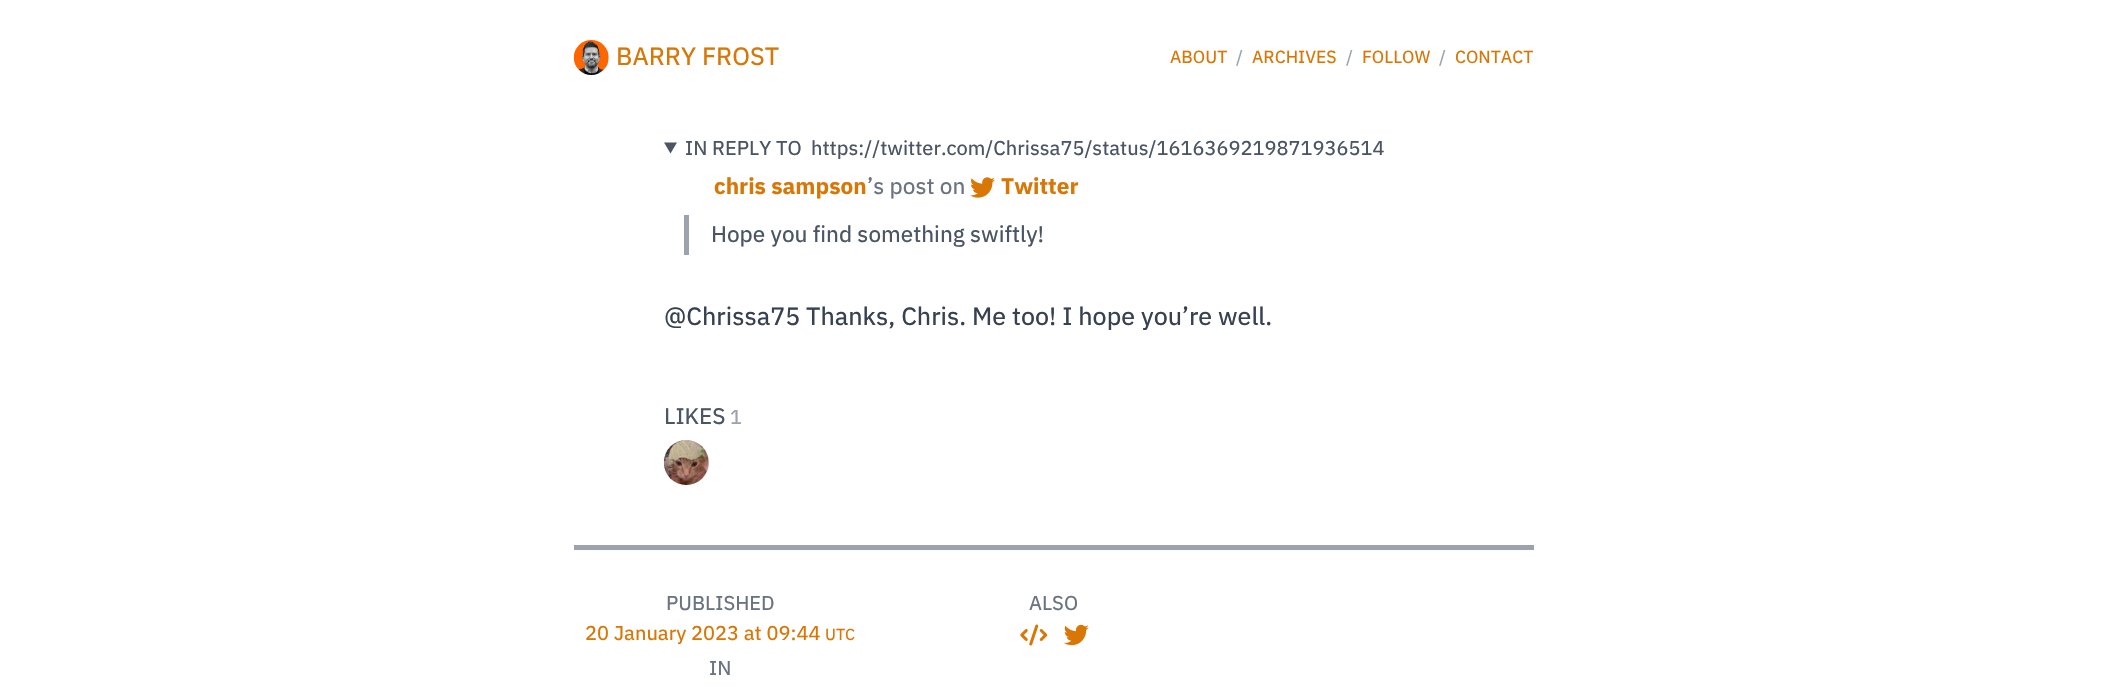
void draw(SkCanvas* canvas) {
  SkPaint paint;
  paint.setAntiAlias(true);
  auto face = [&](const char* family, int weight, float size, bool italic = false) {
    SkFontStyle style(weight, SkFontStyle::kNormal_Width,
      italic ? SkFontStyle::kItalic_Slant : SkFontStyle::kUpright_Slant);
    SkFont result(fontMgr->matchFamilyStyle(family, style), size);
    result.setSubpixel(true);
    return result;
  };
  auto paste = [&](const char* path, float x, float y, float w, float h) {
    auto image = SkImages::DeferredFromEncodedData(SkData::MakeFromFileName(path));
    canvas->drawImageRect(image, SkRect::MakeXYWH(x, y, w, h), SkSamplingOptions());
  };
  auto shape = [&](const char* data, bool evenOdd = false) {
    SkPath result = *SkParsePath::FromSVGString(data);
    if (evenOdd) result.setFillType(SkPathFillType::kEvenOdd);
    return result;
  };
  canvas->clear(0xffffffff);
  paste("img/1.png", 573, 40, 36, 35);
  paint.setColor(0xff4b5563);
  canvas->drawPath(shape("M664 142.5H677L670.5 153.5Z"), paint);
  paste("img/2.png", 970, 177, 25, 21);
  paint.setColor(0xff9ca3af);
  canvas->drawRect(SkRect::MakeXYWH(684, 215, 5, 40), paint);
  paint.setColor(0xffd1d5db);
  canvas->drawCircle(686.5f, 462.5f, 22.5f, paint);
  paste("img/3.png", 663, 440, 46, 45);
  paint.setColor(0xff9ca3af);
  canvas->drawRect(SkRect::MakeXYWH(574, 545, 960, 5), paint);
  paste("img/4.png", 1020, 624, 28, 22);
  paste("img/5.png", 1064, 624, 25, 22);
  auto f0 = face("IBM Plex Sans", 400, 25);
  paint.setColor(0xffd97706);
  canvas->drawString("BARRY FROST", 616, 65, f0, paint);
  auto f1 = face("IBM Plex Sans", 400, 17.5f);
  canvas->drawString("ABOUT", 1170, 63, f1, paint);
  paint.setColor(0xff9ca3af);
  canvas->drawString("/", 1236, 63, f1, paint);
  paint.setColor(0xffd97706);
  canvas->drawString("ARCHIVES", 1252, 63, f1, paint);
  paint.setColor(0xff9ca3af);
  canvas->drawString("/", 1346, 63, f1, paint);
  paint.setColor(0xffd97706);
  canvas->drawString("FOLLOW", 1362, 63, f1, paint);
  paint.setColor(0xff9ca3af);
  canvas->drawString("/", 1439, 63, f1, paint);
  paint.setColor(0xffd97706);
  canvas->drawString("CONTACT", 1455, 63, f1, paint);
  auto f2 = face("IBM Plex Sans", 400, 20);
  paint.setColor(0xff4b5563);
  canvas->drawString("IN REPLY TO", 685, 155, f2, paint);
  canvas->drawString("https://twitter.com/Chrissa75/status/1616369219871936514", 811, 155, f2, paint);
  auto f3 = face("IBM Plex Sans", 700, 22.5f);
  paint.setColor(0xffd97706);
  canvas->drawString("chris sampson", 714, 194, f3, paint);
  auto f4 = face("IBM Plex Sans", 400, 22.5f);
  paint.setColor(0xff6b7280);
  canvas->drawString("’s post on", 867, 194, f4, paint);
  paint.setColor(0xffd97706);
  canvas->drawString("Twitter", 1001, 194, f3, paint);
  paint.setColor(0xff4b5563);
  canvas->drawString("Hope you find something swiftly!", 711, 242, f4, paint);
  paint.setColor(0xff374151);
  canvas->drawString("@Chrissa75 Thanks, Chris. Me too! I hope you’re well.", 664, 325, f0, paint);
  paint.setColor(0xff4b5563);
  canvas->drawString("LIKES", 664, 424, f4, paint);
  paint.setColor(0xff9ca3af);
  canvas->drawString("1", 730, 424, f2, paint);
  paint.setColor(0xff6b7280);
  canvas->drawString("PUBLISHED", 666, 610, f2, paint);
  paint.setColor(0xffd97706);
  canvas->drawString("20 January 2023 at 09:44", 585, 640, f2, paint);
  auto f5 = face("IBM Plex Sans", 400, 16);
  canvas->drawString("UTC", 825, 640, f5, paint);
  paint.setColor(0xff6b7280);
  canvas->drawString("IN", 709, 675, f2, paint);
  canvas->drawString("ALSO", 1029, 610, f2, paint);
}
